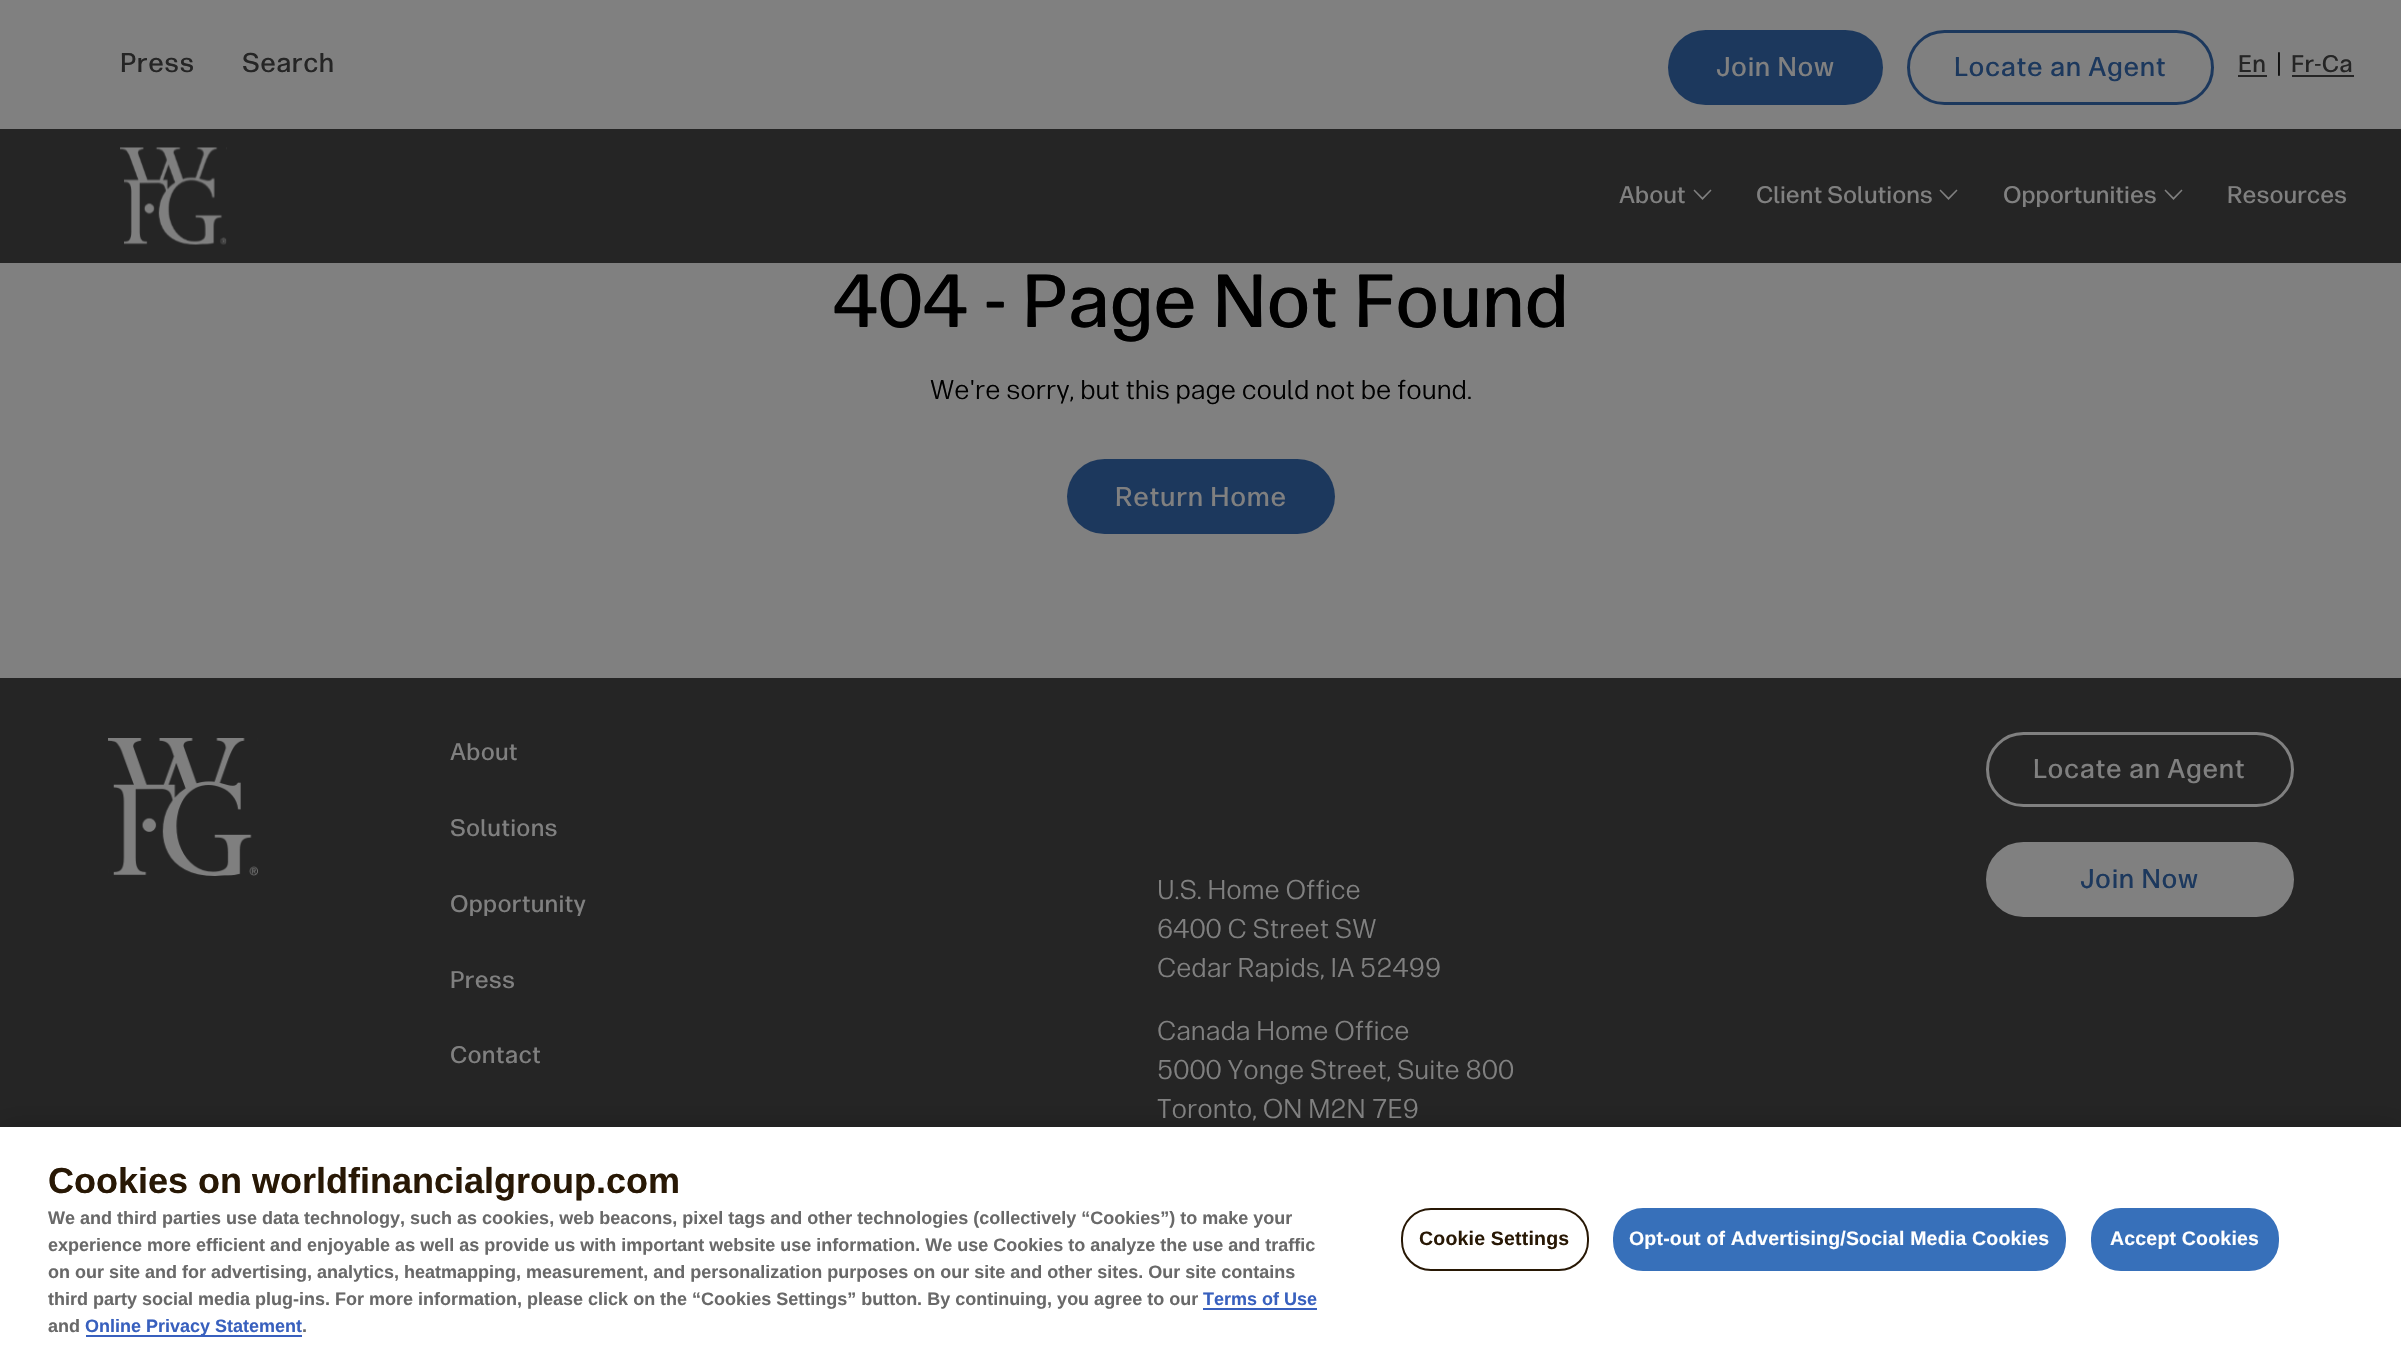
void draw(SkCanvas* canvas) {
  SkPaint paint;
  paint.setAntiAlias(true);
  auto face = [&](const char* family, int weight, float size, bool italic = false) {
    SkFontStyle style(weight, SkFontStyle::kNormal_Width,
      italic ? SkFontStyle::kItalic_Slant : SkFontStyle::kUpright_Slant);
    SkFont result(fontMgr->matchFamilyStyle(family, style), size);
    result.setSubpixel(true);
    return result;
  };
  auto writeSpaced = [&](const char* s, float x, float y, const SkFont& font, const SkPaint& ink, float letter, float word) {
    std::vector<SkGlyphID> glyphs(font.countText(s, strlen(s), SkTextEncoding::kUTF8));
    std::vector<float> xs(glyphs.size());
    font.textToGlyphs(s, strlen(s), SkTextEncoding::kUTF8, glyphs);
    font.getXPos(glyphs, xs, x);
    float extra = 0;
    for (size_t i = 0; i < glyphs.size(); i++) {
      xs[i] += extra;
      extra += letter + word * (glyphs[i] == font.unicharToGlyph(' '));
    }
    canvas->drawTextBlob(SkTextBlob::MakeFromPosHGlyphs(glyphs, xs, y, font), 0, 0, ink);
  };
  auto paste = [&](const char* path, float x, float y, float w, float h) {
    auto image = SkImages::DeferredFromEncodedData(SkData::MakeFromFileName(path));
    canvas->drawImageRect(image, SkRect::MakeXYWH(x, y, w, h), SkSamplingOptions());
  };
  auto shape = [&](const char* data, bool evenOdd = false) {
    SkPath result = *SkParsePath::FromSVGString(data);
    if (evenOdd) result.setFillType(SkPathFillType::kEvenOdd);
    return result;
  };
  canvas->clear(0xff808080);
  paint.setColor(0xff1c385d);
  canvas->drawRoundRect(SkRect::MakeXYWH(1668, 30, 215, 75), 37.5f, 37.5f, paint);
  paint.setStroke(true);
  paint.setStrokeWidth(3);
  canvas->drawRoundRect(SkRect::MakeXYWH(1908.5f, 31.5f, 304, 72), 36, 36, paint);
  paint.setStroke(false);
  {
    const struct { float x, y, w, h; SkColor color; } items[] = {
      {2238, 75, 29, 2, 0xff252525},
      {2292, 75, 62, 2, 0xff252525},
      {0, 129, 2401, 134, 0xff252525},
    };
    for (auto [x, y, w, h, color] : items) {
      paint.setColor(color);
      canvas->drawRect(SkRect::MakeXYWH(x, y, w, h), paint);
    }
  }
  paste("img/1.png", 120, 147, 107, 98);
  paint.setColor(0xff808080);
  canvas->drawPath(shape("M1710.5 189.5L1702.5 197.5L1694.5 189.5L1693.5 190.5L1702.5 200L1711.5 190.5Z"), paint);
  canvas->drawPath(shape("M1956.5 189.5L1948.5 197.5L1940.5 189.5L1939.5 190.5L1948.5 200L1957.5 190.5Z"), paint);
  canvas->drawPath(shape("M2181.5 189.5L2173.5 197.5L2165.5 189.5L2164.5 190.5L2173.5 200L2182.5 190.5Z"), paint);
  paint.setColor(0xff1c385d);
  canvas->drawRoundRect(SkRect::MakeXYWH(1067, 459, 268, 75), 37.5f, 37.5f, paint);
  paint.setColor(0xff252525);
  canvas->drawRect(SkRect::MakeXYWH(0, 678, 2401, 449), paint);
  paste("img/2.png", 108, 738, 150, 138);
  paint.setStroke(true);
  paint.setColor(0xff808080);
  canvas->drawRoundRect(SkRect::MakeXYWH(1987.5f, 733.5f, 305, 72), 36, 36, paint);
  paint.setStroke(false);
  canvas->drawRoundRect(SkRect::MakeXYWH(1987.5f, 843.5f, 305, 72), 36, 36, paint);
  paint.setStroke(true);
  canvas->drawRoundRect(SkRect::MakeXYWH(1987.5f, 843.5f, 305, 72), 36, 36, paint);
  paint.setStroke(false);
  paint.setColor(0x33000000);
  paint.setMaskFilter(SkMaskFilter::MakeBlur(kNormal_SkBlurStyle, 13.5f));
  canvas->drawRect(SkRect::MakeXYWH(0, 1127, 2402, 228), paint);
  paint.setMaskFilter(nullptr);
  {
    const struct { float x, y, w, h; SkColor color; } items[] = {
      {0, 1127, 2401, 227, 0xffffffff},
      {1203, 1308, 114, 2, 0xff3860be},
      {86, 1335, 216, 2, 0xff3860be},
    };
    for (auto [x, y, w, h, color] : items) {
      paint.setColor(color);
      canvas->drawRect(SkRect::MakeXYWH(x, y, w, h), paint);
    }
  }
  paint.setStroke(true);
  paint.setStrokeWidth(2);
  paint.setColor(0xff281805);
  canvas->drawRoundRect(SkRect::MakeXYWH(1402, 1209, 186, 61), 29, 29, paint);
  paint.setStroke(false);
  paint.setColor(0xff3770ba);
  canvas->drawRoundRect(SkRect::MakeXYWH(1614, 1209, 451, 61), 29, 29, paint);
  paint.setStroke(true);
  canvas->drawRoundRect(SkRect::MakeXYWH(1614, 1209, 451, 61), 29, 29, paint);
  paint.setStroke(false);
  canvas->drawRoundRect(SkRect::MakeXYWH(2092, 1209, 186, 61), 29, 29, paint);
  paint.setStroke(true);
  canvas->drawRoundRect(SkRect::MakeXYWH(2092, 1209, 186, 61), 29, 29, paint);
  auto f0 = face("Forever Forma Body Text", 500, 27);
  paint.setStroke(false);
  paint.setColor(0xff252525);
  writeSpaced("Press", 120, 72, f0, paint, 0.5f, 0);
  writeSpaced("Search", 242, 72, f0, paint, 0.5f, 0);
  paint.setColor(0xff808080);
  writeSpaced("Join Now", 1716, 76, f0, paint, 0.7f, 0);
  paint.setColor(0xff1c385d);
  writeSpaced("Locate an Agent", 1954, 76, f0, paint, 0.7f, 0);
  auto f1 = face("Forever Forma Body Text", 500, 24);
  paint.setColor(0xff252525);
  writeSpaced("En", 2238, 72, f1, paint, 0.25f, 0);
  auto f2 = face("Forever Forma Body Text", 400, 27);
  paint.setColor(0xff000000);
  canvas->drawString("|", 2277, 72, f2, paint);
  paint.setColor(0xff252525);
  writeSpaced("Fr-Ca", 2291, 72, f1, paint, 0.25f, 0);
  paint.setColor(0xff808080);
  {
    const struct { const char* s; float x, y; } items[] = {
      {"About", 1619, 203},
      {"Client Solutions", 1756, 203},
      {"Opportunities", 2003, 203},
      {"Resources", 2227, 203},
    };
    for (auto [s, x, y] : items) {
      canvas->drawString(s, x, y, f1, paint);
    }
  }
  auto f3 = face("Forever Forma Body Text", 500, 75);
  paint.setColor(0xff000000);
  canvas->drawString("404 - Page Not Found", 833, 327, f3, paint);
  canvas->drawString("We're sorry, but this page could not be found.", 930, 399, f2, paint);
  paint.setColor(0xff808080);
  writeSpaced("Return Home", 1115, 506, f0, paint, 0.7f, 0);
  {
    const struct { const char* s; float x, y; } items[] = {
      {"About", 450, 760},
      {"Solutions", 450, 836},
      {"Opportunity", 450, 912},
      {"Press", 450, 988},
      {"Contact", 450, 1063},
    };
    for (auto [s, x, y] : items) {
      writeSpaced(s, x, y, f1, paint, 0.25f, 0);
    }
  }
  writeSpaced("Locate an Agent", 2033, 778, f0, paint, 0.7f, 0);
  paint.setColor(0xff1c385d);
  writeSpaced("Join Now", 2080, 888, f0, paint, 0.7f, 0);
  paint.setColor(0xff808080);
  {
    const struct { const char* s; float x, y; } items[] = {
      {"U.S. Home Office", 1157, 899},
      {"6400 C Street SW", 1157, 938},
      {"Cedar Rapids, IA 52499", 1157, 977},
      {"Canada Home Office", 1157, 1040},
      {"5000 Yonge Street, Suite 800", 1157, 1079},
      {"Toronto, ON M2N 7E9", 1157, 1118},
    };
    for (auto [s, x, y] : items) {
      canvas->drawString(s, x, y, f2, paint);
    }
  }
  auto f4 = face("Liberation Sans", 700, 36);
  paint.setColor(0xff281805);
  canvas->drawString("Cookies on worldfinancialgroup.com", 48, 1193, f4, paint);
  auto f5 = face("Liberation Sans", 700, 18);
  paint.setColor(0xff696969);
  {
    const struct { const char* s; float x, y; } items[] = {
      {"We and third parties use data technology, such as cookies, web beacons, pixel tags and other technologies (collectively “Cookies”) to make your", 48, 1224},
      {"experience more efficient and enjoyable as well as provide us with important website use information. We use Cookies to analyze the use and traffic", 48, 1251},
      {"on our site and for advertising, analytics, heatmapping, measurement, and personalization purposes on our site and other sites. Our site contains", 48, 1278},
      {"third party social media plug-ins. For more information, please click on the “Cookies Settings” button. By continuing, you agree to our", 48, 1305},
    };
    for (auto [s, x, y] : items) {
      canvas->drawString(s, x, y, f5, paint);
    }
  }
  paint.setColor(0xff3860be);
  canvas->drawString("Terms of Use", 1203, 1305, f5, paint);
  paint.setColor(0xff696969);
  canvas->drawString("and", 48, 1332, f5, paint);
  paint.setColor(0xff3860be);
  canvas->drawString("Online Privacy Statement", 85, 1332, f5, paint);
  paint.setColor(0xff696969);
  canvas->drawString(".", 302, 1332, f5, paint);
  auto f6 = face("Liberation Sans", 700, 19.5f);
  paint.setColor(0xff281805);
  writeSpaced("Cookie Settings", 1419, 1245, f6, paint, 0.2f, 0);
  paint.setColor(0xffffffff);
  writeSpaced("Opt-out of Advertising/Social Media Cookies", 1629, 1245, f6, paint, 0.2f, 0);
  writeSpaced("Accept Cookies", 2110, 1245, f6, paint, 0.2f, 0);
}
